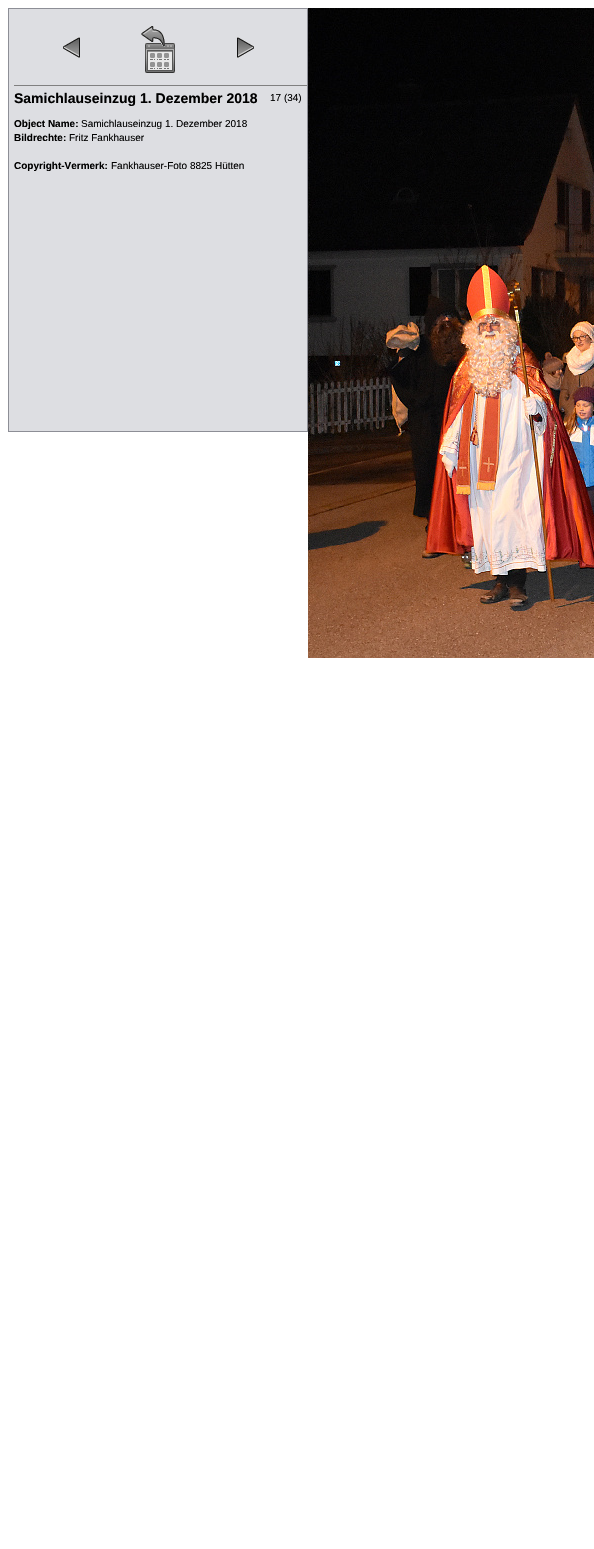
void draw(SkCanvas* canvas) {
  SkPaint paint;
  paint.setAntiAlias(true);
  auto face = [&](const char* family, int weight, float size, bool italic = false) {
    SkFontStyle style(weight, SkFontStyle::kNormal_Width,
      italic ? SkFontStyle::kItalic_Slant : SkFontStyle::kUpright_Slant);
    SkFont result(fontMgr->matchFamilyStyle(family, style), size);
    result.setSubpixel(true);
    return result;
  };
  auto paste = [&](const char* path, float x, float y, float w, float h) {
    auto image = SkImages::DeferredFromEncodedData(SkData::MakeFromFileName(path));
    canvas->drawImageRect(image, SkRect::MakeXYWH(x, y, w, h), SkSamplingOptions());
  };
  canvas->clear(0xffffffff);
  paint.setColor(0xffdddee2);
  canvas->drawRect(SkRect::MakeXYWH(8.5f, 8.5f, 299, 423), paint);
  paint.setStroke(true);
  paint.setStrokeWidth(1);
  paint.setColor(0xff8d8e96);
  canvas->drawRect(SkRect::MakeXYWH(8.5f, 8.5f, 299, 423), paint);
  paste("img/1.png", 63, 37, 17, 21);
  paste("img/2.png", 141, 26, 34, 47);
  paste("img/3.png", 237, 37, 17, 21);
  paint.setStroke(false);
  paint.setColor(0xff808080);
  canvas->drawRect(SkRect::MakeXYWH(14, 85, 293, 1), paint);
  paste("img/4.png", 308, 8, 286, 650);
  auto f0 = face("Liberation Sans", 700, 14);
  paint.setColor(0xff000000);
  canvas->drawString("Samichlauseinzug 1. Dezember 2018", 14, 103, f0, paint);
  auto f1 = face("Liberation Sans", 700, 10);
  canvas->drawString("Object Name:", 14, 127, f1, paint);
  auto f2 = face("Liberation Sans", 400, 10);
  canvas->drawString("Samichlauseinzug 1. Dezember 2018", 81, 127, f2, paint);
  canvas->drawString("Bildrechte:", 14, 141, f1, paint);
  canvas->drawString("Fritz Fankhauser", 69, 141, f2, paint);
  canvas->drawString("Copyright-Vermerk:", 14, 169, f1, paint);
  canvas->drawString("Fankhauser-Foto 8825 Hütten", 111, 169, f2, paint);
  canvas->drawString("17 (34)", 270, 101, f2, paint);
}
